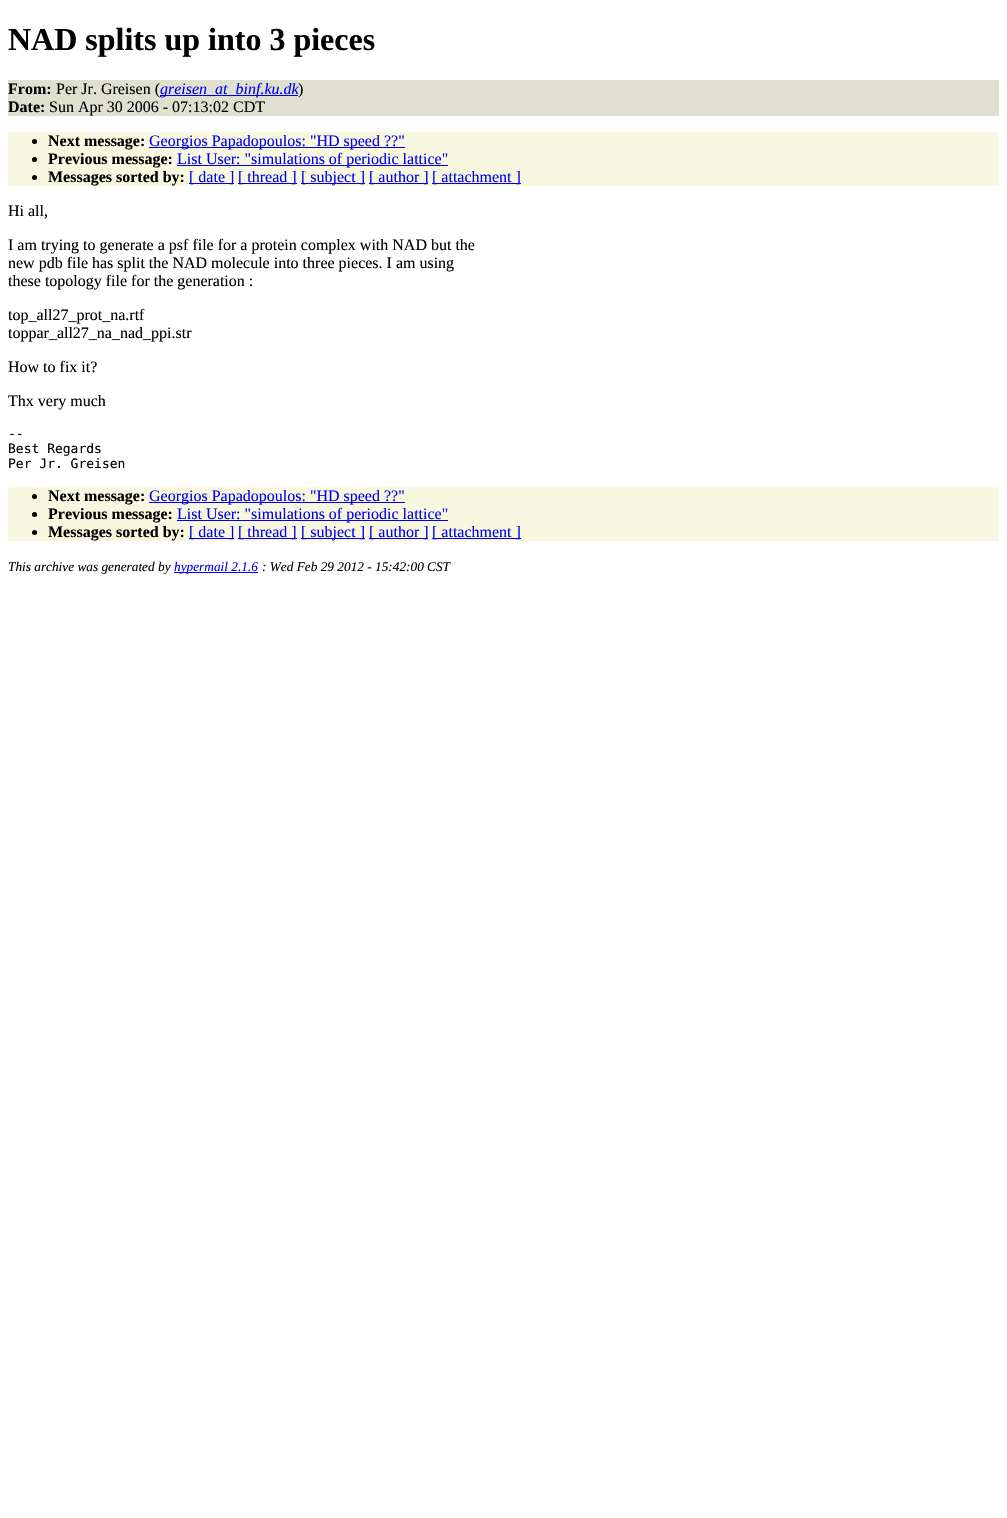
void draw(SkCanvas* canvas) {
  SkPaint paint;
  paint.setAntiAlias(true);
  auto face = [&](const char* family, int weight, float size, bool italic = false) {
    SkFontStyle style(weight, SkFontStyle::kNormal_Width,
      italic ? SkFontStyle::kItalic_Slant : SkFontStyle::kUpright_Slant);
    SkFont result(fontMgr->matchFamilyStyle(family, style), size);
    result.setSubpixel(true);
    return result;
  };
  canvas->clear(0xffffffff);
  {
    const struct { float x, y, w, h; SkColor color; } items[] = {
      {8, 80, 991, 36, 0xffe0e0d0},
      {160, 95, 138, 1, 0xff0000ee},
      {8, 132, 991, 54, 0xfff8f8e0},
    };
    for (auto [x, y, w, h, color] : items) {
      paint.setColor(color);
      canvas->drawRect(SkRect::MakeXYWH(x, y, w, h), paint);
    }
  }
  paint.setColor(0xff000000);
  canvas->drawCircle(34.5f, 141.5f, 2.5f, paint);
  paint.setColor(0xff0000ee);
  canvas->drawRect(SkRect::MakeXYWH(149, 147, 256, 1), paint);
  paint.setColor(0xff000000);
  canvas->drawCircle(34.5f, 159.5f, 2.5f, paint);
  paint.setColor(0xff0000ee);
  canvas->drawRect(SkRect::MakeXYWH(177, 165, 271, 1), paint);
  paint.setColor(0xff000000);
  canvas->drawCircle(34.5f, 177.5f, 2.5f, paint);
  {
    const struct { float x, y, w, h; SkColor color; } items[] = {
      {189, 183, 45, 1, 0xff0000ee},
      {238, 183, 59, 1, 0xff0000ee},
      {301, 183, 64, 1, 0xff0000ee},
      {369, 183, 59, 1, 0xff0000ee},
      {432, 183, 89, 1, 0xff0000ee},
      {8, 487, 991, 54, 0xfff8f8e0},
    };
    for (auto [x, y, w, h, color] : items) {
      paint.setColor(color);
      canvas->drawRect(SkRect::MakeXYWH(x, y, w, h), paint);
    }
  }
  paint.setColor(0xff000000);
  canvas->drawCircle(34.5f, 496.5f, 2.5f, paint);
  paint.setColor(0xff0000ee);
  canvas->drawRect(SkRect::MakeXYWH(149, 502, 256, 1), paint);
  paint.setColor(0xff000000);
  canvas->drawCircle(34.5f, 514.5f, 2.5f, paint);
  paint.setColor(0xff0000ee);
  canvas->drawRect(SkRect::MakeXYWH(177, 520, 271, 1), paint);
  paint.setColor(0xff000000);
  canvas->drawCircle(34.5f, 532.5f, 2.5f, paint);
  {
    const struct { float x, y, w, h; SkColor color; } items[] = {
      {189, 538, 45, 1, 0xff0000ee},
      {238, 538, 59, 1, 0xff0000ee},
      {301, 538, 64, 1, 0xff0000ee},
      {369, 538, 59, 1, 0xff0000ee},
      {432, 538, 89, 1, 0xff0000ee},
      {174, 572, 84, 1, 0xff0000ee},
    };
    for (auto [x, y, w, h, color] : items) {
      paint.setColor(color);
      canvas->drawRect(SkRect::MakeXYWH(x, y, w, h), paint);
    }
  }
  auto f0 = face("Liberation Serif", 700, 32);
  paint.setColor(0xff000000);
  canvas->drawString("NAD splits up into 3 pieces", 8, 50, f0, paint);
  auto f1 = face("Liberation Serif", 700, 16);
  canvas->drawString("From:", 8, 94, f1, paint);
  auto f2 = face("Liberation Serif", 400, 16);
  canvas->drawString("Per Jr. Greisen (", 56, 94, f2, paint);
  auto f3 = face("Liberation Serif", 400, 16, true);
  paint.setColor(0xff0000ee);
  canvas->drawString("greisen_at_binf.ku.dk", 160, 94, f3, paint);
  paint.setColor(0xff000000);
  canvas->drawString(")", 298, 94, f2, paint);
  canvas->drawString("Date:", 8, 112, f1, paint);
  canvas->drawString("Sun Apr 30 2006 - 07:13:02 CDT", 49, 112, f2, paint);
  canvas->drawString("Next message:", 48, 146, f1, paint);
  paint.setColor(0xff0000ee);
  canvas->drawString("Georgios Papadopoulos: \"HD speed ?\077\"", 149, 146, f2, paint);
  paint.setColor(0xff000000);
  canvas->drawString("Previous message:", 48, 164, f1, paint);
  paint.setColor(0xff0000ee);
  canvas->drawString("List User: \"simulations of periodic lattice\"", 177, 164, f2, paint);
  paint.setColor(0xff000000);
  canvas->drawString("Messages sorted by:", 48, 182, f1, paint);
  paint.setColor(0xff0000ee);
  {
    const struct { const char* s; float x, y; } items[] = {
      {"[ date ]", 189, 182},
      {"[ thread ]", 238, 182},
      {"[ subject ]", 301, 182},
      {"[ author ]", 369, 182},
      {"[ attachment ]", 432, 182},
    };
    for (auto [s, x, y] : items) {
      canvas->drawString(s, x, y, f2, paint);
    }
  }
  paint.setColor(0xff000000);
  {
    const struct { const char* s; float x, y; } items[] = {
      {"Hi all,", 8, 216},
      {"I am trying to generate a psf file for a protein complex with NAD but the", 8, 250},
      {"new pdb file has split the NAD molecule into three pieces. I am using", 8, 268},
      {"these topology file for the generation :", 8, 286},
      {"top_all27_prot_na.rtf", 8, 320},
      {"toppar_all27_na_nad_ppi.str", 8, 338},
      {"How to fix it?", 8, 372},
      {"Thx very much", 8, 406},
    };
    for (auto [s, x, y] : items) {
      canvas->drawString(s, x, y, f2, paint);
    }
  }
  auto f4 = face("DejaVu Sans Mono", 400, 13);
  {
    const struct { const char* s; float x, y; } items[] = {
      {"--", 8, 438},
      {"Best Regards", 8, 453},
      {"Per Jr. Greisen", 8, 468},
    };
    for (auto [s, x, y] : items) {
      canvas->drawString(s, x, y, f4, paint);
    }
  }
  canvas->drawString("Next message:", 48, 501, f1, paint);
  paint.setColor(0xff0000ee);
  canvas->drawString("Georgios Papadopoulos: \"HD speed ?\077\"", 149, 501, f2, paint);
  paint.setColor(0xff000000);
  canvas->drawString("Previous message:", 48, 519, f1, paint);
  paint.setColor(0xff0000ee);
  canvas->drawString("List User: \"simulations of periodic lattice\"", 177, 519, f2, paint);
  paint.setColor(0xff000000);
  canvas->drawString("Messages sorted by:", 48, 537, f1, paint);
  paint.setColor(0xff0000ee);
  {
    const struct { const char* s; float x, y; } items[] = {
      {"[ date ]", 189, 537},
      {"[ thread ]", 238, 537},
      {"[ subject ]", 301, 537},
      {"[ author ]", 369, 537},
      {"[ attachment ]", 432, 537},
    };
    for (auto [s, x, y] : items) {
      canvas->drawString(s, x, y, f2, paint);
    }
  }
  auto f5 = face("Liberation Serif", 400, 13.3f, true);
  paint.setColor(0xff000000);
  canvas->drawString("This archive was generated by", 8, 571, f5, paint);
  paint.setColor(0xff0000ee);
  canvas->drawString("hypermail 2.1.6", 174, 571, f5, paint);
  paint.setColor(0xff000000);
  canvas->drawString(": Wed Feb 29 2012 - 15:42:00 CST", 262, 571, f5, paint);
}
